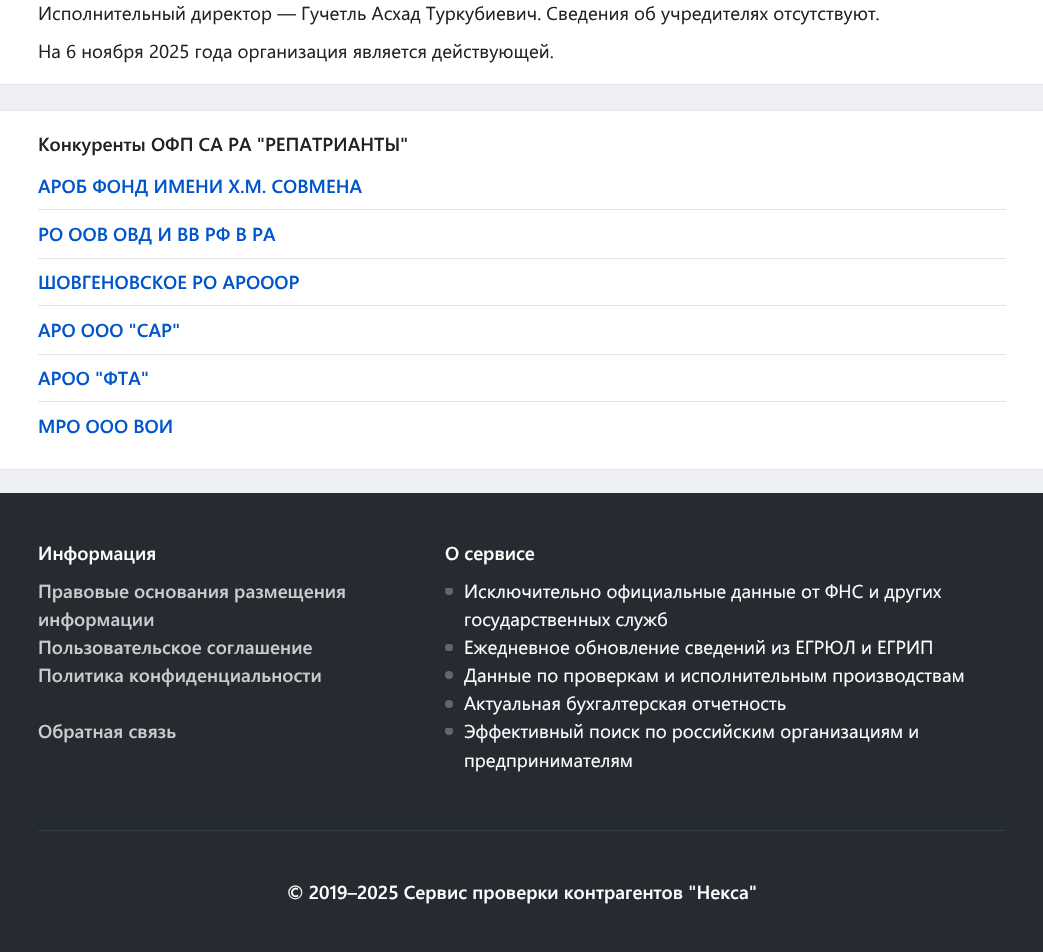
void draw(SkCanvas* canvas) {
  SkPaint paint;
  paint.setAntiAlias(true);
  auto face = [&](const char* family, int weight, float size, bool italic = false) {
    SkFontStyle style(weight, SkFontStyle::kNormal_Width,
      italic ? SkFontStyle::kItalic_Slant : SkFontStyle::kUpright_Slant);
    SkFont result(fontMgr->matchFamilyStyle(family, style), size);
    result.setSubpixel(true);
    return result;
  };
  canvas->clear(0xffeeeff2);
  {
    const struct { float x, y, w, h; SkColor color; } items[] = {
      {0, 0, 1043, 84, 0xffffffff},
      {0, 84, 1043, 1, 0xffe5e5e5},
      {0, 111, 1043, 358, 0xffffffff},
      {0, 110, 1043, 1, 0xffe5e5e5},
      {0, 469, 1043, 1, 0xffe5e5e5},
      {38, 209, 968, 1, 0xffe5e5e5},
      {38, 258, 968, 1, 0xffe5e5e5},
      {38, 305, 968, 1, 0xffe5e5e5},
      {38, 354, 968, 1, 0xffe5e5e5},
      {38, 401, 968, 1, 0xffe5e5e5},
      {0, 493, 1043, 459, 0xff252b30},
    };
    for (auto [x, y, w, h, color] : items) {
      paint.setColor(color);
      canvas->drawRect(SkRect::MakeXYWH(x, y, w, h), paint);
    }
  }
  canvas->save();
  canvas->clipRect(SkRect::MakeXYWH(445, 588, 8, 7));
  paint.setColor(0xff666666);
  canvas->drawCircle(449, 591, 4, paint);
  canvas->restore();
  canvas->save();
  canvas->clipRect(SkRect::MakeXYWH(445, 644, 8, 7));
  canvas->drawCircle(449, 647.5f, 4, paint);
  canvas->restore();
  canvas->drawCircle(449, 675, 4, paint);
  canvas->drawCircle(449, 704, 4, paint);
  canvas->save();
  canvas->clipRect(SkRect::MakeXYWH(445, 728, 8, 7));
  canvas->drawCircle(449, 731, 4, paint);
  canvas->restore();
  paint.setColor(0xff333d44);
  canvas->drawRect(SkRect::MakeXYWH(38, 830, 968, 1), paint);
  auto f0 = face("Segoe UI", 400, 18.75f);
  paint.setColor(0xff222222);
  canvas->drawString("Исполнительный директор — Гучетль Асхад Туркубиевич. Сведения об учредителях отсутствуют.", 38, 20, f0, paint);
  canvas->drawString("На 6 ноября 2025 года организация является действующей.", 38, 58, f0, paint);
  auto f1 = face("Segoe UI", 600, 18.75f);
  canvas->drawString("Конкуренты ОФП СА РА \"РЕПАТРИАНТЫ\"", 38, 151, f1, paint);
  paint.setColor(0xff0055cc);
  {
    const struct { const char* s; float x, y; } items[] = {
      {"АРОБ ФОНД ИМЕНИ Х.М. СОВМЕНА", 38, 193},
      {"РО ООВ ОВД И ВВ РФ В РА", 38, 241},
      {"ШОВГЕНОВСКОЕ РО АРОООР", 38, 289},
      {"АРО ООО \"САР\"", 38, 337},
      {"АРОО \"ФТА\"", 38, 385},
      {"МРО ООО ВОИ", 38, 433},
    };
    for (auto [s, x, y] : items) {
      canvas->drawString(s, x, y, f1, paint);
    }
  }
  paint.setColor(0xffffffff);
  canvas->drawString("Информация", 38, 560, f1, paint);
  paint.setColor(0xffcccccc);
  {
    const struct { const char* s; float x, y; } items[] = {
      {"Правовые основания размещения", 38, 598},
      {"информации", 38, 626},
      {"Пользовательское соглашение", 38, 654},
      {"Политика конфиденциальности", 38, 682},
      {"Обратная связь", 38, 738},
    };
    for (auto [s, x, y] : items) {
      canvas->drawString(s, x, y, f1, paint);
    }
  }
  paint.setColor(0xffffffff);
  canvas->drawString("О сервисе", 445, 560, f1, paint);
  {
    const struct { const char* s; float x, y; } items[] = {
      {"Исключительно официальные данные от ФНС и других", 464, 598},
      {"государственных служб", 464, 626},
      {"Ежедневное обновление сведений из ЕГРЮЛ и ЕГРИП", 464, 654},
      {"Данные по проверкам и исполнительным производствам", 464, 682},
      {"Актуальная бухгалтерская отчетность", 464, 710},
      {"Эффективный поиск по российским организациям и", 464, 738},
      {"предпринимателям", 464, 767},
    };
    for (auto [s, x, y] : items) {
      canvas->drawString(s, x, y, f0, paint);
    }
  }
  canvas->drawString("© 2019–2025 Сервис проверки контрагентов \"Некса\"", 287, 899, f1, paint);
}
